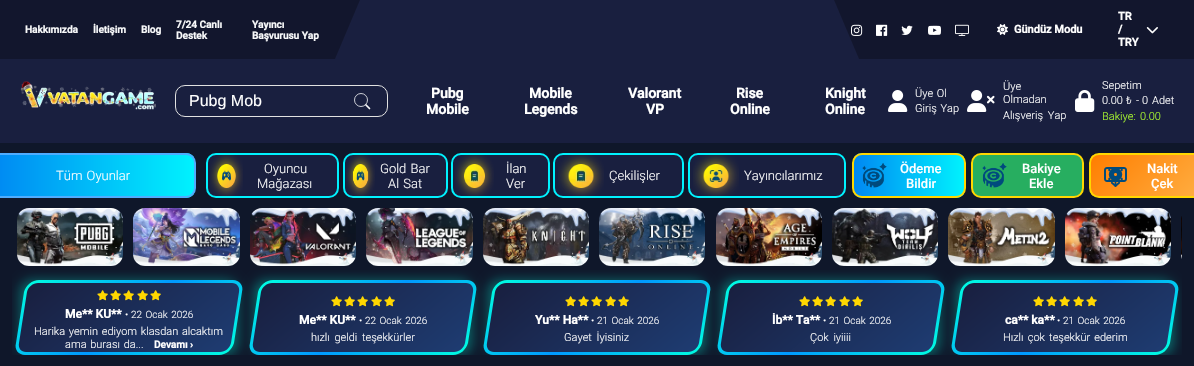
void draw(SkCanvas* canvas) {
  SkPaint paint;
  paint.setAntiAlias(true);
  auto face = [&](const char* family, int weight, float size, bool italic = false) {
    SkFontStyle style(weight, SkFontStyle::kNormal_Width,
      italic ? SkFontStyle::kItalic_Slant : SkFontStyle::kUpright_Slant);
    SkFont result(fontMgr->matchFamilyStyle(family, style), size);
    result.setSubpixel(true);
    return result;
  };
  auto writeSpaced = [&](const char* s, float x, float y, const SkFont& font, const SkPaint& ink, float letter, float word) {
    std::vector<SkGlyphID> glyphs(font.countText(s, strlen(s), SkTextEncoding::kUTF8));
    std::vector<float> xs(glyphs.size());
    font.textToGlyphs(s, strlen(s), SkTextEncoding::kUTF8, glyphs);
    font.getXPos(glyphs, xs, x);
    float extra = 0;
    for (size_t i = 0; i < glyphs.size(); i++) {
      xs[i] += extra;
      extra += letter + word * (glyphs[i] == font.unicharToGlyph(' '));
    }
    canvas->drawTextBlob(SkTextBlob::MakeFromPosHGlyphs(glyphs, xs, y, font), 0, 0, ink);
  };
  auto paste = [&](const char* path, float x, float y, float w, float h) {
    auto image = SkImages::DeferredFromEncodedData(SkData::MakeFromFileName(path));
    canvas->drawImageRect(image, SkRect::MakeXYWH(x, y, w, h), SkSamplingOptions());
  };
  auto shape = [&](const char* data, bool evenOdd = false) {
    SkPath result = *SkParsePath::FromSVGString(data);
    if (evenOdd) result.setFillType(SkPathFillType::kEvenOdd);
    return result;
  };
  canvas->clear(0xff0f172a);
  paint.setColor(0xff12162d);
  canvas->drawRect(SkRect::MakeXYWH(0, 0, 1194, 59), paint);
  paste("img/1.png", 851, 24, 12, 12);
  paint.setColor(0xff191f3f);
  canvas->drawPath(shape("M360 0L335 59H859L834 0Z"), paint);
  paste("img/2.png", 876, 24, 12, 12);
  paste("img/3.png", 901, 25, 12, 10);
  paste("img/4.png", 928, 25, 13, 10);
  paste("img/5.png", 955, 24, 14, 12);
  paste("img/6.png", 997, 24, 11, 11);
  paste("img/7.png", 1146, 27, 12, 7);
  canvas->drawRect(SkRect::MakeXYWH(0, 59, 1194, 84), paint);
  paste("img/8.png", 20, 81, 136, 29);
  paint.setStroke(true);
  paint.setStrokeWidth(1);
  paint.setColor(0xffe1e1e1);
  canvas->drawRoundRect(SkRect::MakeXYWH(175.5f, 85.5f, 212, 31), 9.5f, 9.5f, paint);
  paint.setStrokeWidth(0.8f);
  paint.setColor(0xfff8f9fa);
  canvas->drawCircle(361, 100, 6.5f, paint);
  paint.setStrokeWidth(1.7f);
  paint.setStrokeCap(SkPaint::kRound_Cap);
  paint.setStrokeJoin(SkPaint::kRound_Join);
  canvas->drawPath(shape("M369.5 108.5L366 105"), paint);
  paste("img/9.png", 888, 90, 20, 22);
  paste("img/10.png", 967, 90, 28, 22);
  paste("img/11.png", 1075, 90, 20, 22);
  canvas->save();
  canvas->clipPath(shape("M1 153H186C191.5 153 196 157.5 196 163V188C196 193.5 191.5 198 186 198H1C-4.5 198-9 193.5-9 188V163C-9 157.5-4.5 153 1 153Z"), true);
  paint.setStroke(false);
  {
    const SkColor colors[] = {0xff0088f2, 0xff00f2fe};
    const float stops[] = {0, 1};
    const SkPoint ends[] = {{-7, 176}, {194, 176}};
    paint.setShader(SkGradientShader::MakeLinear(ends, colors, stops, 2, SkTileMode::kClamp));
    paint.setAlpha(255);
  }
  canvas->drawRect(SkRect::MakeXYWH(0, 153, 194, 45), paint);
  canvas->restore();
  paint.setStroke(true);
  paint.setStrokeWidth(2);
  paint.setStrokeCap(SkPaint::kButt_Cap);
  paint.setStrokeJoin(SkPaint::kMiter_Join);
  paint.setShader(nullptr);
  paint.setColor(0xff4facfe);
  canvas->drawRoundRect(SkRect::MakeXYWH(-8, 154, 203, 43), 9, 9, paint);
  paint.setStroke(false);
  paint.setColor(0xff191f3f);
  canvas->drawRoundRect(SkRect::MakeXYWH(207, 154, 131, 43), 9, 9, paint);
  paint.setStroke(true);
  paint.setColor(0xff00f2fe);
  canvas->drawRoundRect(SkRect::MakeXYWH(207, 154, 131, 43), 9, 9, paint);
  paste("img/12.png", 210, 154, 33, 44);
  paint.setStroke(false);
  paint.setColor(0xff191f3f);
  canvas->drawRoundRect(SkRect::MakeXYWH(344, 154, 103, 43), 9, 9, paint);
  paint.setStroke(true);
  paint.setColor(0xff00f2fe);
  canvas->drawRoundRect(SkRect::MakeXYWH(344, 154, 103, 43), 9, 9, paint);
  paste("img/13.png", 346, 154, 29, 44);
  paint.setStroke(false);
  paint.setColor(0xff191f3f);
  canvas->drawRoundRect(SkRect::MakeXYWH(452, 154, 97, 43), 9, 9, paint);
  paint.setStroke(true);
  paint.setColor(0xff00f2fe);
  canvas->drawRoundRect(SkRect::MakeXYWH(452, 154, 97, 43), 9, 9, paint);
  paste("img/14.png", 455, 154, 39, 44);
  paint.setStroke(false);
  paint.setColor(0xff191f3f);
  canvas->drawRoundRect(SkRect::MakeXYWH(554, 154, 129, 43), 9, 9, paint);
  paint.setStroke(true);
  paint.setColor(0xff00f2fe);
  canvas->drawRoundRect(SkRect::MakeXYWH(554, 154, 129, 43), 9, 9, paint);
  paste("img/15.png", 558, 154, 46, 44);
  paint.setStroke(false);
  paint.setColor(0xff191f3f);
  canvas->drawRoundRect(SkRect::MakeXYWH(689, 154, 156, 43), 9, 9, paint);
  paint.setStroke(true);
  paint.setColor(0xff00f2fe);
  canvas->drawRoundRect(SkRect::MakeXYWH(689, 154, 156, 43), 9, 9, paint);
  paste("img/16.png", 693, 154, 46, 44);
  canvas->save();
  canvas->clipPath(shape("M862 153H956C961.5 153 966 157.5 966 163V188C966 193.5 961.5 198 956 198H862C856.5 198 852 193.5 852 188V163C852 157.5 856.5 153 862 153Z"), true);
  paint.setStroke(false);
  {
    const SkColor colors[] = {0xff0088f2, 0xff00f2fe};
    const float stops[] = {0, 1};
    const SkPoint ends[] = {{854, 176}, {964, 176}};
    paint.setShader(SkGradientShader::MakeLinear(ends, colors, stops, 2, SkTileMode::kClamp));
    paint.setAlpha(255);
  }
  canvas->drawRect(SkRect::MakeXYWH(854, 153, 110, 45), paint);
  canvas->restore();
  paint.setStroke(true);
  paint.setShader(nullptr);
  paint.setColor(0xffffd700);
  canvas->drawRoundRect(SkRect::MakeXYWH(853, 154, 112, 43), 9, 9, paint);
  paste("img/17.png", 862, 163, 25, 25);
  paint.setStroke(false);
  paint.setColor(0xff27ae60);
  canvas->drawRoundRect(SkRect::MakeXYWH(972, 154, 111, 43), 9, 9, paint);
  paint.setStroke(true);
  paint.setColor(0xffffd700);
  canvas->drawRoundRect(SkRect::MakeXYWH(972, 154, 111, 43), 9, 9, paint);
  paste("img/18.png", 982, 163, 25, 25);
  canvas->save();
  canvas->clipPath(shape("M1099 153H1193C1198.5 153 1203 157.5 1203 163V188C1203 193.5 1198.5 198 1193 198H1099C1093.5 198 1089 193.5 1089 188V163C1089 157.5 1093.5 153 1099 153Z"), true);
  paint.setStroke(false);
  {
    const SkColor colors[] = {0xffff7e00, 0xffffae42};
    const float stops[] = {0, 1};
    const SkPoint ends[] = {{1108, 138}, {1184, 213}};
    paint.setShader(SkGradientShader::MakeLinear(ends, colors, stops, 2, SkTileMode::kClamp));
    paint.setAlpha(255);
  }
  canvas->drawRect(SkRect::MakeXYWH(1091, 155, 103, 41), paint);
  canvas->restore();
  paint.setStroke(true);
  paint.setShader(nullptr);
  paint.setColor(0xffffd700);
  canvas->drawRoundRect(SkRect::MakeXYWH(1090, 154, 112, 43), 9, 9, paint);
  paste("img/19.png", 1104, 167, 23, 20);
  paste("img/20.png", 17, 208, 106, 58);
  paste("img/21.png", 133, 208, 107, 58);
  paste("img/22.png", 250, 208, 106, 58);
  paste("img/23.png", 366, 208, 107, 58);
  paste("img/24.png", 483, 208, 106, 58);
  paste("img/25.png", 599, 208, 106, 58);
  paste("img/26.png", 716, 208, 106, 58);
  paste("img/27.png", 832, 208, 106, 58);
  paste("img/28.png", 948, 208, 107, 58);
  paste("img/29.png", 1065, 208, 106, 58);
  paste("img/30.png", 1181, 216, 1, 43);
  canvas->save();
  canvas->clipRect(SkRect::MakeXYWH(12, 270, 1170, 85));
  paint.setStroke(false);
  paint.setColor(0x5900ffe1);
  paint.setMaskFilter(SkMaskFilter::MakeBlur(kNormal_SkBlurStyle, 6));
  canvas->drawRoundRect(SkRect::MakeXYWH(20, 280, 218, 75), 12, 12, paint);
  paint.setMaskFilter(nullptr);
  canvas->restore();
  {
    const SkColor colors[] = {0xff00ffe1, 0xff0099ff, 0xff00ffe1};
    const float stops[] = {0, 0.5f, 1};
    const SkPoint ends[] = {{69, 244}, {189, 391}};
    paint.setShader(SkGradientShader::MakeLinear(ends, colors, stops, 3, SkTileMode::kClamp));
    paint.setAlpha(255);
  }
  canvas->drawPath(shape("M39 280H233C239 280 244 285 242 292L234 343C232 350 226 355 219 355H25C19 355 14 350 16 343L24 292C26 285 32 280 39 280Z"), paint);
  {
    const SkColor colors[] = {0xff191f3f, 0xff1e3c72};
    const float stops[] = {0, 1};
    const SkPoint ends[] = {{71, 247}, {187, 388}};
    paint.setShader(SkGradientShader::MakeLinear(ends, colors, stops, 2, SkTileMode::kClamp));
    paint.setAlpha(255);
  }
  canvas->drawPath(shape("M38 283H232C237 283 240 287 239 292L231 343C230 348 225 352 220 352H26C21 352 18 348 19 343L27 292C28 287 33 283 38 283Z"), paint);
  paste("img/31.png", 97, 290, 11, 11);
  paste("img/32.png", 110, 290, 11, 11);
  paste("img/33.png", 123, 290, 11, 11);
  paste("img/34.png", 137, 290, 11, 11);
  paste("img/35.png", 150, 290, 11, 11);
  canvas->save();
  canvas->clipRect(SkRect::MakeXYWH(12, 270, 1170, 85));
  paint.setShader(nullptr);
  paint.setColor(0x5900ffe1);
  paint.setMaskFilter(SkMaskFilter::MakeBlur(kNormal_SkBlurStyle, 6));
  canvas->drawRoundRect(SkRect::MakeXYWH(254, 280, 218, 75), 12, 12, paint);
  paint.setMaskFilter(nullptr);
  canvas->restore();
  {
    const SkColor colors[] = {0xff00ffe1, 0xff0099ff, 0xff00ffe1};
    const float stops[] = {0, 0.5f, 1};
    const SkPoint ends[] = {{303, 244}, {423, 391}};
    paint.setShader(SkGradientShader::MakeLinear(ends, colors, stops, 3, SkTileMode::kClamp));
    paint.setAlpha(255);
  }
  canvas->drawPath(shape("M273 280H467C473 280 478 285 476 292L468 343C466 350 460 355 453 355H259C253 355 248 350 250 343L258 292C260 285 266 280 273 280Z"), paint);
  {
    const SkColor colors[] = {0xff191f3f, 0xff1e3c72};
    const float stops[] = {0, 1};
    const SkPoint ends[] = {{305, 247}, {421, 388}};
    paint.setShader(SkGradientShader::MakeLinear(ends, colors, stops, 2, SkTileMode::kClamp));
    paint.setAlpha(255);
  }
  canvas->drawPath(shape("M272 283H466C471 283 474 287 473 292L465 343C464 348 459 352 454 352H260C255 352 252 348 253 343L261 292C262 287 267 283 272 283Z"), paint);
  paste("img/36.png", 331, 296, 11, 11);
  paste("img/37.png", 344, 296, 11, 11);
  paste("img/38.png", 357, 296, 11, 11);
  paste("img/39.png", 371, 296, 11, 11);
  paste("img/40.png", 384, 296, 11, 11);
  canvas->save();
  canvas->clipRect(SkRect::MakeXYWH(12, 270, 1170, 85));
  paint.setShader(nullptr);
  paint.setColor(0x5900ffe1);
  paint.setMaskFilter(SkMaskFilter::MakeBlur(kNormal_SkBlurStyle, 6));
  canvas->drawRoundRect(SkRect::MakeXYWH(488, 280, 218, 75), 12, 12, paint);
  paint.setMaskFilter(nullptr);
  canvas->restore();
  {
    const SkColor colors[] = {0xff00ffe1, 0xff0099ff, 0xff00ffe1};
    const float stops[] = {0, 0.5f, 1};
    const SkPoint ends[] = {{537, 244}, {657, 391}};
    paint.setShader(SkGradientShader::MakeLinear(ends, colors, stops, 3, SkTileMode::kClamp));
    paint.setAlpha(255);
  }
  canvas->drawPath(shape("M507 280H701C707 280 712 285 710 292L702 343C700 350 694 355 687 355H493C487 355 482 350 484 343L492 292C494 285 500 280 507 280Z"), paint);
  {
    const SkColor colors[] = {0xff191f3f, 0xff1e3c72};
    const float stops[] = {0, 1};
    const SkPoint ends[] = {{539, 247}, {655, 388}};
    paint.setShader(SkGradientShader::MakeLinear(ends, colors, stops, 2, SkTileMode::kClamp));
    paint.setAlpha(255);
  }
  canvas->drawPath(shape("M506 283H700C705 283 708 287 707 292L699 343C698 348 693 352 688 352H494C489 352 486 348 487 343L495 292C496 287 501 283 506 283Z"), paint);
  paste("img/36.png", 565, 296, 11, 11);
  paste("img/37.png", 578, 296, 11, 11);
  paste("img/38.png", 591, 296, 11, 11);
  paste("img/39.png", 605, 296, 11, 11);
  paste("img/40.png", 618, 296, 11, 11);
  canvas->save();
  canvas->clipRect(SkRect::MakeXYWH(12, 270, 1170, 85));
  paint.setShader(nullptr);
  paint.setColor(0x5900ffe1);
  paint.setMaskFilter(SkMaskFilter::MakeBlur(kNormal_SkBlurStyle, 6));
  canvas->drawRoundRect(SkRect::MakeXYWH(722, 280, 218, 75), 12, 12, paint);
  paint.setMaskFilter(nullptr);
  canvas->restore();
  {
    const SkColor colors[] = {0xff00ffe1, 0xff0099ff, 0xff00ffe1};
    const float stops[] = {0, 0.5f, 1};
    const SkPoint ends[] = {{771, 244}, {891, 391}};
    paint.setShader(SkGradientShader::MakeLinear(ends, colors, stops, 3, SkTileMode::kClamp));
    paint.setAlpha(255);
  }
  canvas->drawPath(shape("M741 280H935C941 280 946 285 944 292L936 343C934 350 928 355 921 355H727C721 355 716 350 718 343L726 292C728 285 734 280 741 280Z"), paint);
  {
    const SkColor colors[] = {0xff191f3f, 0xff1e3c72};
    const float stops[] = {0, 1};
    const SkPoint ends[] = {{773, 247}, {889, 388}};
    paint.setShader(SkGradientShader::MakeLinear(ends, colors, stops, 2, SkTileMode::kClamp));
    paint.setAlpha(255);
  }
  canvas->drawPath(shape("M740 283H934C939 283 942 287 941 292L933 343C932 348 927 352 922 352H728C723 352 720 348 721 343L729 292C730 287 735 283 740 283Z"), paint);
  paste("img/36.png", 799, 296, 11, 11);
  paste("img/37.png", 812, 296, 11, 11);
  paste("img/38.png", 825, 296, 11, 11);
  paste("img/39.png", 839, 296, 11, 11);
  paste("img/40.png", 852, 296, 11, 11);
  canvas->save();
  canvas->clipRect(SkRect::MakeXYWH(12, 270, 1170, 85));
  paint.setShader(nullptr);
  paint.setColor(0x5900ffe1);
  paint.setMaskFilter(SkMaskFilter::MakeBlur(kNormal_SkBlurStyle, 6));
  canvas->drawRoundRect(SkRect::MakeXYWH(956, 280, 218, 75), 12, 12, paint);
  paint.setMaskFilter(nullptr);
  canvas->restore();
  {
    const SkColor colors[] = {0xff00ffe1, 0xff0099ff, 0xff00ffe1};
    const float stops[] = {0, 0.5f, 1};
    const SkPoint ends[] = {{1005, 244}, {1125, 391}};
    paint.setShader(SkGradientShader::MakeLinear(ends, colors, stops, 3, SkTileMode::kClamp));
    paint.setAlpha(255);
  }
  canvas->drawPath(shape("M975 280H1169C1175 280 1180 285 1178 292L1170 343C1168 350 1162 355 1155 355H961C955 355 950 350 952 343L960 292C962 285 968 280 975 280Z"), paint);
  {
    const SkColor colors[] = {0xff191f3f, 0xff1e3c72};
    const float stops[] = {0, 1};
    const SkPoint ends[] = {{1007, 247}, {1123, 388}};
    paint.setShader(SkGradientShader::MakeLinear(ends, colors, stops, 2, SkTileMode::kClamp));
    paint.setAlpha(255);
  }
  canvas->drawPath(shape("M974 283H1168C1173 283 1176 287 1175 292L1167 343C1166 348 1161 352 1156 352H962C957 352 954 348 955 343L963 292C964 287 969 283 974 283Z"), paint);
  paste("img/36.png", 1033, 296, 11, 11);
  paste("img/37.png", 1046, 296, 11, 11);
  paste("img/38.png", 1059, 296, 11, 11);
  paste("img/39.png", 1073, 296, 11, 11);
  paste("img/40.png", 1086, 296, 11, 11);
  auto f0 = face("Roboto", 700, 10);
  paint.setShader(nullptr);
  paint.setColor(0xfff8f9fa);
  {
    const struct { const char* s; float x, y; } items[] = {
      {"Hakkımızda", 25, 33},
      {"İletişim", 93, 33},
      {"Blog", 141, 33},
      {"7/24 Canlı", 176, 28},
      {"Destek", 176, 39},
      {"Yayıncı", 252, 28},
      {"Başvurusu Yap", 252, 39},
    };
    for (auto [s, x, y] : items) {
      canvas->drawString(s, x, y, f0, paint);
    }
  }
  auto f1 = face("Roboto", 700, 11);
  paint.setColor(0xffffffff);
  {
    const struct { const char* s; float x, y; } items[] = {
      {"Gündüz Modu", 1014, 33},
      {"TR", 1118, 20},
      {"/", 1118, 33},
      {"TRY", 1118, 46},
    };
    for (auto [s, x, y] : items) {
      canvas->drawString(s, x, y, f1, paint);
    }
  }
  auto f2 = face("Liberation Sans", 400, 16);
  canvas->drawString("Pubg Mob", 189, 106, f2, paint);
  auto f3 = face("Roboto", 700, 14);
  {
    const struct { const char* s; float x, y; } items[] = {
      {"Pubg", 431, 98},
      {"Mobile", 426, 114},
      {"Mobile", 529, 98},
      {"Legends", 524, 114},
      {"Valorant", 628, 98},
      {"VP", 646, 114},
      {"Rise", 736, 98},
      {"Online", 730, 114},
      {"Knight", 825, 98},
      {"Online", 825, 114},
    };
    for (auto [s, x, y] : items) {
      canvas->drawString(s, x, y, f3, paint);
    }
  }
  auto f4 = face("Roboto", 300, 11);
  writeSpaced("Üye Ol", 915, 97, f4, paint, 0, 1);
  writeSpaced("Giriş Yap", 915, 112, f4, paint, 0, 1);
  canvas->drawString("Üye", 1003, 90, f4, paint);
  canvas->drawString("Olmadan", 1003, 103, f4, paint);
  writeSpaced("Alışveriş Yap", 1003, 119, f4, paint, 0, 2);
  {
    const struct { const char* s; float x, y; } items[] = {
      {"Sepetim", 1102, 89},
      {"0.00", 1102, 104},
      {"₺", 1126, 104},
      {"-", 1136, 104},
      {"0", 1142, 104},
      {"Adet", 1152, 104},
    };
    for (auto [s, x, y] : items) {
      canvas->drawString(s, x, y, f4, paint);
    }
  }
  paint.setColor(0xffadff2f);
  canvas->drawString("Bakiye:", 1102, 120, f4, paint);
  canvas->drawString("0.00", 1140, 120, f4, paint);
  auto f5 = face("Roboto", 300, 13);
  paint.setColor(0xffffffff);
  writeSpaced("Tüm Oyunlar", 56, 180, f5, paint, 0, 1);
  canvas->drawString("Oyuncu", 264, 173, f5, paint);
  canvas->drawString("Mağazası", 257, 188, f5, paint);
  writeSpaced("Gold Bar", 380, 173, f5, paint, 0, 1);
  writeSpaced("Al Sat", 388, 188, f5, paint, 0, 1);
  {
    const struct { const char* s; float x, y; } items[] = {
      {"İlan", 506, 173},
      {"Ver", 506, 188},
      {"Çekilişler", 609, 180},
      {"Yayıncılarımız", 744, 180},
    };
    for (auto [s, x, y] : items) {
      canvas->drawString(s, x, y, f5, paint);
    }
  }
  auto f6 = face("Roboto", 500, 13);
  {
    const struct { const char* s; float x, y; } items[] = {
      {"Ödeme", 900, 173},
      {"Bildir", 906, 188},
      {"Bakiye", 1022, 173},
      {"Ekle", 1029, 188},
      {"Nakit", 1147, 173},
      {"Çek", 1151, 188},
    };
    for (auto [s, x, y] : items) {
      canvas->drawString(s, x, y, f6, paint);
    }
  }
  auto f7 = face("Roboto", 700, 12);
  canvas->drawString("Me** KU**", 65, 318, f7, paint);
  auto f8 = face("Roboto", 300, 10);
  canvas->drawString("•", 125, 318, f8, paint);
  writeSpaced("22 Ocak 2026", 131, 318, f8, paint, 0, 1);
  writeSpaced("Harika yemin ediyom klasdan alcaktım", 34, 335, f4, paint, 0, 1);
  writeSpaced("ama burası da...", 65, 348, f4, paint, 0, 1);
  canvas->drawString("Devamı ›", 154, 348, f0, paint);
  canvas->drawString("Me** KU**", 299, 324, f7, paint);
  canvas->drawString("•", 359, 324, f8, paint);
  writeSpaced("22 Ocak 2026", 365, 324, f8, paint, 0, 1);
  writeSpaced("hızlı geldi teşekkürler", 311, 341, f4, paint, 0, 2);
  canvas->drawString("Yu** Ha**", 535, 324, f7, paint);
  canvas->drawString("•", 591, 324, f8, paint);
  writeSpaced("21 Ocak 2026", 597, 324, f8, paint, 0, 1);
  writeSpaced("Gayet İyisiniz", 564, 341, f4, paint, 0, 2);
  canvas->drawString("İb** Ta**", 772, 324, f7, paint);
  canvas->drawString("•", 823, 324, f8, paint);
  writeSpaced("21 Ocak 2026", 829, 324, f8, paint, 0, 1);
  writeSpaced("Çok iyiiii", 810, 341, f4, paint, 0, 2);
  canvas->drawString("ca** ka**", 1005, 324, f7, paint);
  canvas->drawString("•", 1057, 324, f8, paint);
  writeSpaced("21 Ocak 2026", 1063, 324, f8, paint, 0, 1);
  writeSpaced("Hızlı çok teşekkür ederim", 1003, 341, f4, paint, 0, 1.5f);
}
